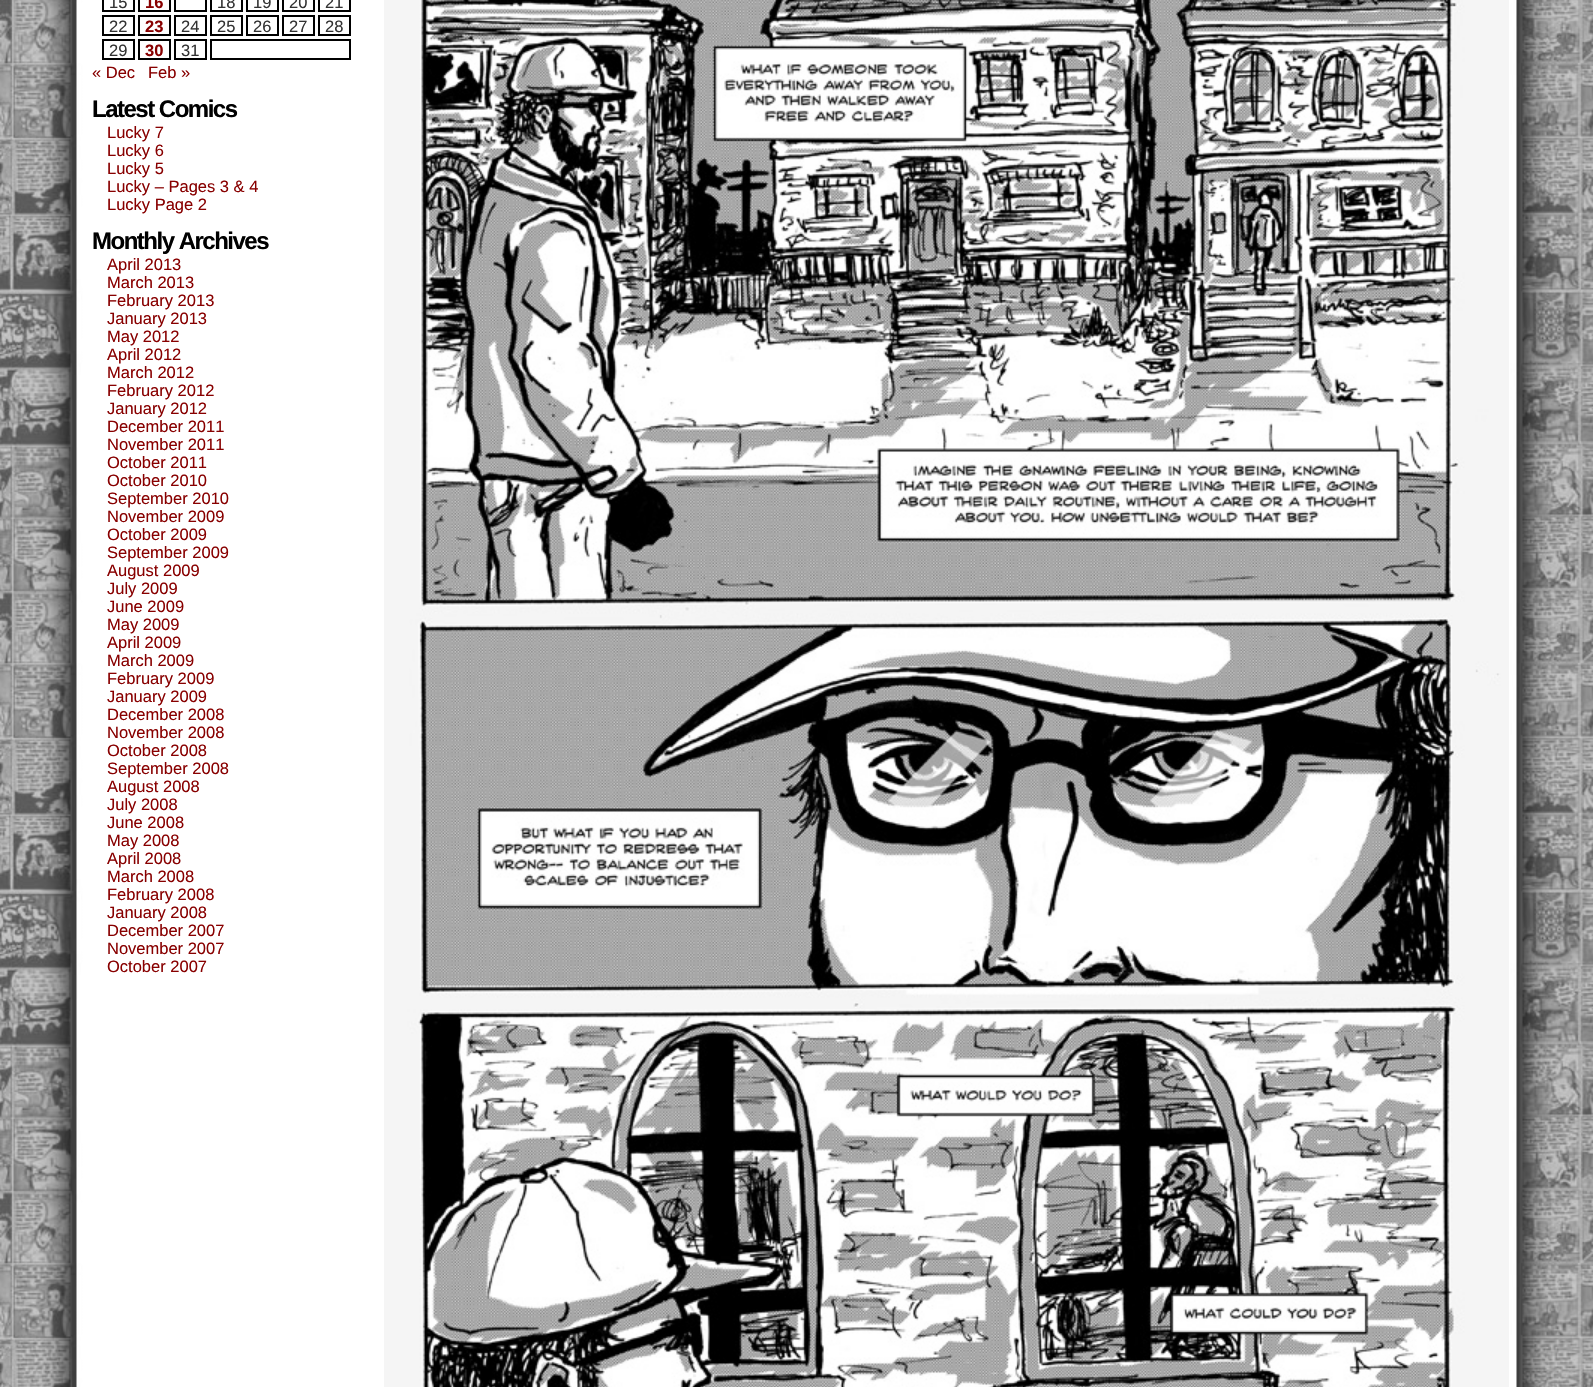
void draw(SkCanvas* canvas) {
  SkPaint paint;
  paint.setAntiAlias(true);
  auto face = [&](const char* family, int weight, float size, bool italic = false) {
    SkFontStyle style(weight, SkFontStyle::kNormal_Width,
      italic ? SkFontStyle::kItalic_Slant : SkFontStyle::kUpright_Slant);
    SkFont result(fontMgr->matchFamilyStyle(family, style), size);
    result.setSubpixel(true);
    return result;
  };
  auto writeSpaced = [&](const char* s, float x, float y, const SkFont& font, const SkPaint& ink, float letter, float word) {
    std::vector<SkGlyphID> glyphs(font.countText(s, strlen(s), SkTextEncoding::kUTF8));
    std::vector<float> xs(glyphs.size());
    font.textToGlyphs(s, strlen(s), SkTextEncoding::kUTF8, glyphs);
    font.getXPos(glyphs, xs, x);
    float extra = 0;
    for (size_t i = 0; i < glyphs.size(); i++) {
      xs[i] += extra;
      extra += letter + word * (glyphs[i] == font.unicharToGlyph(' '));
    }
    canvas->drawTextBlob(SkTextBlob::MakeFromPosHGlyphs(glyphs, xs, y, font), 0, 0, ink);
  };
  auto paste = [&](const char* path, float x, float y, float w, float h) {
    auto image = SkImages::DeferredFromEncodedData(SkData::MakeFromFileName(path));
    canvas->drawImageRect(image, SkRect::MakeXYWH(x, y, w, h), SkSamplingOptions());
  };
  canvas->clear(0xffffffff);
  paste("img/1.png", 0, 0, 1593, 1387);
  paint.setStroke(true);
  paint.setStrokeWidth(2);
  paint.setColor(0xff000000);
  canvas->drawRect(SkRect::MakeXYWH(103, -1, 31, 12), paint);
  canvas->drawRect(SkRect::MakeXYWH(139, -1, 31, 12), paint);
  canvas->drawRect(SkRect::MakeXYWH(175, -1, 31, 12), paint);
  canvas->drawRect(SkRect::MakeXYWH(211, -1, 31, 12), paint);
  canvas->drawRect(SkRect::MakeXYWH(247, -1, 31, 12), paint);
  canvas->drawRect(SkRect::MakeXYWH(283, -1, 31, 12), paint);
  canvas->drawRect(SkRect::MakeXYWH(319, -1, 31, 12), paint);
  canvas->drawRect(SkRect::MakeXYWH(103, 16, 31, 19), paint);
  canvas->drawRect(SkRect::MakeXYWH(139, 16, 31, 19), paint);
  canvas->drawRect(SkRect::MakeXYWH(175, 16, 31, 19), paint);
  canvas->drawRect(SkRect::MakeXYWH(211, 16, 31, 19), paint);
  canvas->drawRect(SkRect::MakeXYWH(247, 16, 31, 19), paint);
  canvas->drawRect(SkRect::MakeXYWH(283, 16, 31, 19), paint);
  canvas->drawRect(SkRect::MakeXYWH(319, 16, 31, 19), paint);
  canvas->drawRect(SkRect::MakeXYWH(103, 40, 31, 19), paint);
  canvas->drawRect(SkRect::MakeXYWH(139, 40, 31, 19), paint);
  canvas->drawRect(SkRect::MakeXYWH(175, 40, 31, 19), paint);
  canvas->drawRect(SkRect::MakeXYWH(211, 40, 139, 19), paint);
  paste("img/2.png", 384, 0, 1125, 1387);
  auto f0 = face("Liberation Sans", 400, 16.5f);
  paint.setStroke(false);
  paint.setColor(0xff333333);
  canvas->drawString("15", 109, 8, f0, paint);
  auto f1 = face("Liberation Sans", 700, 16.5f);
  paint.setColor(0xff880000);
  canvas->drawString("16", 145, 8, f1, paint);
  paint.setColor(0xff333333);
  {
    const struct { const char* s; float x, y; } items[] = {
      {"18", 217, 8},
      {"19", 253, 8},
      {"20", 289, 8},
      {"21", 325, 8},
      {"22", 109, 32},
    };
    for (auto [s, x, y] : items) {
      canvas->drawString(s, x, y, f0, paint);
    }
  }
  paint.setColor(0xff880000);
  canvas->drawString("23", 145, 32, f1, paint);
  paint.setColor(0xff333333);
  {
    const struct { const char* s; float x, y; } items[] = {
      {"24", 181, 32},
      {"25", 217, 32},
      {"26", 253, 32},
      {"27", 289, 32},
      {"28", 325, 32},
      {"29", 109, 56},
    };
    for (auto [s, x, y] : items) {
      canvas->drawString(s, x, y, f0, paint);
    }
  }
  paint.setColor(0xff880000);
  canvas->drawString("30", 145, 56, f1, paint);
  paint.setColor(0xff333333);
  canvas->drawString("31", 181, 56, f0, paint);
  paint.setColor(0xff880000);
  canvas->drawString("« Dec", 92, 78, f0, paint);
  canvas->drawString("Feb »", 148, 78, f0, paint);
  auto f2 = face("Liberation Sans", 700, 24);
  paint.setColor(0xff000000);
  writeSpaced("Latest Comics", 92, 117, f2, paint, -1.5f, 0);
  paint.setColor(0xff880000);
  {
    const struct { const char* s; float x, y; } items[] = {
      {"Lucky 7", 107, 138},
      {"Lucky 6", 107, 156},
      {"Lucky 5", 107, 174},
      {"Lucky – Pages 3 & 4", 107, 192},
      {"Lucky Page 2", 107, 210},
    };
    for (auto [s, x, y] : items) {
      canvas->drawString(s, x, y, f0, paint);
    }
  }
  paint.setColor(0xff000000);
  writeSpaced("Monthly Archives", 92, 249, f2, paint, -1.5f, 0);
  paint.setColor(0xff880000);
  {
    const struct { const char* s; float x, y; } items[] = {
      {"April 2013", 107, 270},
      {"March 2013", 107, 288},
      {"February 2013", 107, 306},
      {"January 2013", 107, 324},
      {"May 2012", 107, 342},
      {"April 2012", 107, 360},
      {"March 2012", 107, 378},
      {"February 2012", 107, 396},
      {"January 2012", 107, 414},
      {"December 2011", 107, 432},
      {"November 2011", 107, 450},
      {"October 2011", 107, 468},
      {"October 2010", 107, 486},
      {"September 2010", 107, 504},
      {"November 2009", 107, 522},
      {"October 2009", 107, 540},
      {"September 2009", 107, 558},
      {"August 2009", 107, 576},
      {"July 2009", 107, 594},
      {"June 2009", 107, 612},
      {"May 2009", 107, 630},
      {"April 2009", 107, 648},
      {"March 2009", 107, 666},
      {"February 2009", 107, 684},
      {"January 2009", 107, 702},
      {"December 2008", 107, 720},
      {"November 2008", 107, 738},
      {"October 2008", 107, 756},
      {"September 2008", 107, 774},
      {"August 2008", 107, 792},
      {"July 2008", 107, 810},
      {"June 2008", 107, 828},
      {"May 2008", 107, 846},
      {"April 2008", 107, 864},
      {"March 2008", 107, 882},
      {"February 2008", 107, 900},
      {"January 2008", 107, 918},
      {"December 2007", 107, 936},
      {"November 2007", 107, 954},
      {"October 2007", 107, 972},
    };
    for (auto [s, x, y] : items) {
      canvas->drawString(s, x, y, f0, paint);
    }
  }
}
